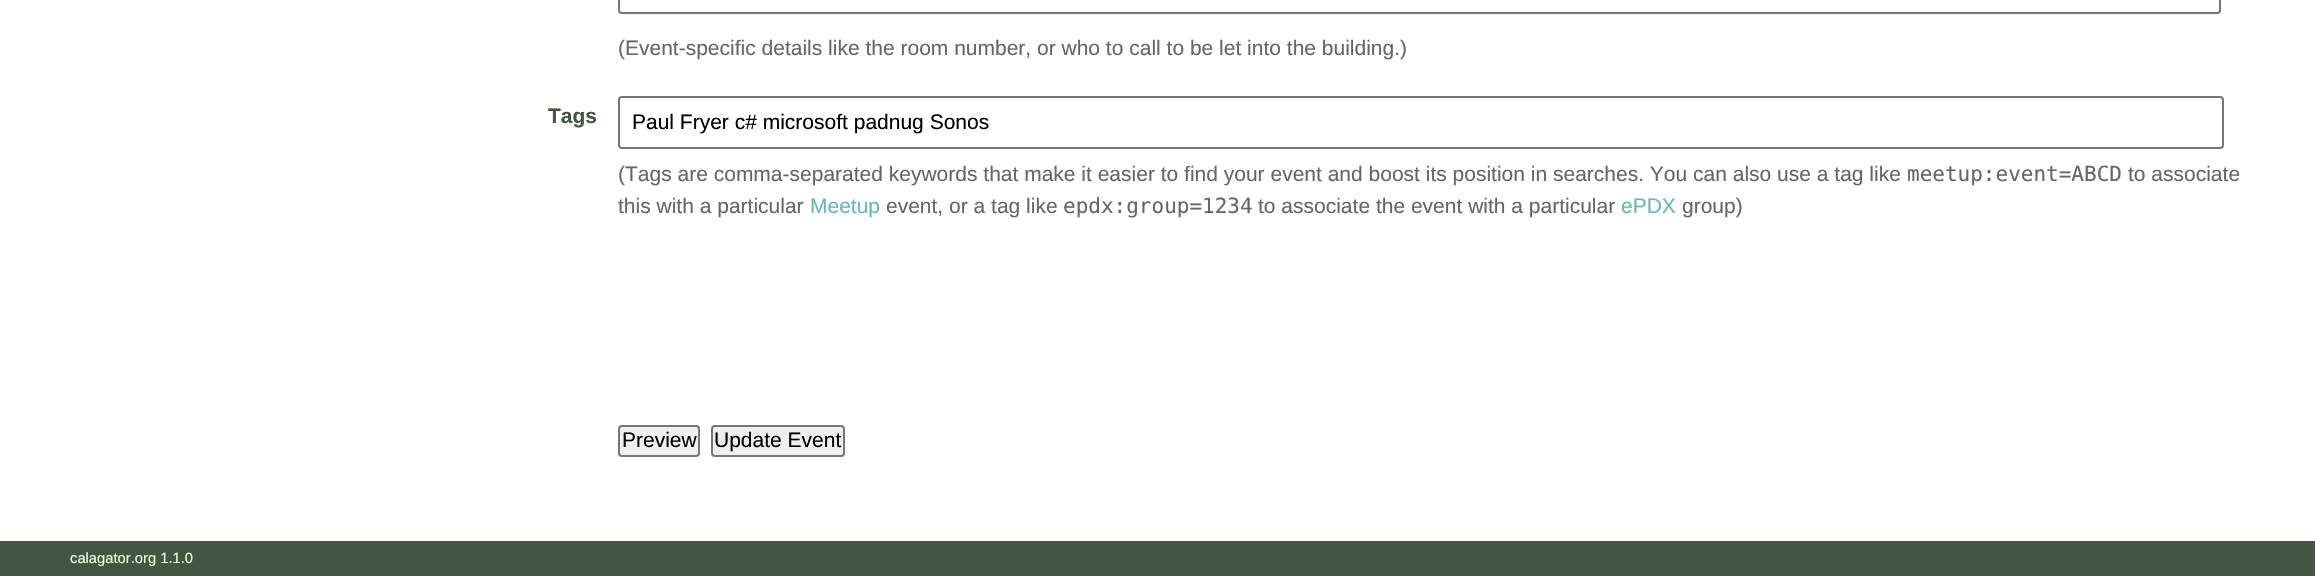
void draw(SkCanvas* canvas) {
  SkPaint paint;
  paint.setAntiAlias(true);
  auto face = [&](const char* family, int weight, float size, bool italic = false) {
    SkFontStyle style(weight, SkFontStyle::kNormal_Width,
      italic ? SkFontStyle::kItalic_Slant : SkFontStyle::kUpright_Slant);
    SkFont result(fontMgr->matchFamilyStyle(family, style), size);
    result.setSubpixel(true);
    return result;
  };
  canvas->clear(0xffffffff);
  paint.setStroke(true);
  paint.setStrokeWidth(2);
  paint.setColor(0xff767676);
  canvas->drawRoundRect(SkRect::MakeXYWH(619, -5, 1601, 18), 3, 3, paint);
  canvas->drawRoundRect(SkRect::MakeXYWH(619, 97, 1604, 51), 3, 3, paint);
  paint.setStroke(false);
  paint.setColor(0xffefefef);
  canvas->drawRoundRect(SkRect::MakeXYWH(619, 426, 80, 30), 3, 3, paint);
  paint.setStroke(true);
  paint.setColor(0xff767676);
  canvas->drawRoundRect(SkRect::MakeXYWH(619, 426, 80, 30), 3, 3, paint);
  paint.setStroke(false);
  paint.setColor(0xffefefef);
  canvas->drawRoundRect(SkRect::MakeXYWH(712, 426, 132, 30), 3, 3, paint);
  paint.setStroke(true);
  paint.setColor(0xff767676);
  canvas->drawRoundRect(SkRect::MakeXYWH(712, 426, 132, 30), 3, 3, paint);
  paint.setStroke(false);
  paint.setColor(0xff445544);
  canvas->drawRect(SkRect::MakeXYWH(0, 541, 2315, 35), paint);
  auto f0 = face("Liberation Sans", 400, 21);
  paint.setColor(0xff666666);
  canvas->drawString("(Event-specific details like the room number, or who to call to be let into the building.)", 618, 55, f0, paint);
  auto f1 = face("Liberation Sans", 700, 21);
  paint.setColor(0xff445544);
  canvas->drawString("Tags", 548, 123, f1, paint);
  paint.setColor(0xff000000);
  canvas->drawString("Paul Fryer c# microsoft padnug Sonos", 632, 129, f0, paint);
  paint.setColor(0xff666666);
  canvas->drawString("(Tags are comma-separated keywords that make it easier to find your event and boost its position in searches. You can also use a tag like", 618, 181, f0, paint);
  auto f2 = face("DejaVu Sans Mono", 400, 21);
  canvas->drawString("meetup:event=ABCD", 1907, 181, f2, paint);
  canvas->drawString("to associate", 2128, 181, f0, paint);
  canvas->drawString("this with a particular", 618, 213, f0, paint);
  paint.setColor(0xff66baa9);
  canvas->drawString("Meetup", 810, 213, f0, paint);
  paint.setColor(0xff666666);
  canvas->drawString("event, or a tag like", 886, 213, f0, paint);
  canvas->drawString("epdx:group=1234", 1063, 213, f2, paint);
  canvas->drawString("to associate the event with a particular", 1258, 213, f0, paint);
  paint.setColor(0xff66baa9);
  canvas->drawString("ePDX", 1621, 213, f0, paint);
  paint.setColor(0xff666666);
  canvas->drawString("group)", 1682, 213, f0, paint);
  paint.setColor(0xff000000);
  canvas->drawString("Preview", 622, 447, f0, paint);
  canvas->drawString("Update Event", 714, 447, f0, paint);
  auto f3 = face("Liberation Sans", 400, 14.75f);
  paint.setColor(0xffe8ffd9);
  canvas->drawString("calagator.org 1.1.0", 70, 563, f3, paint);
}
